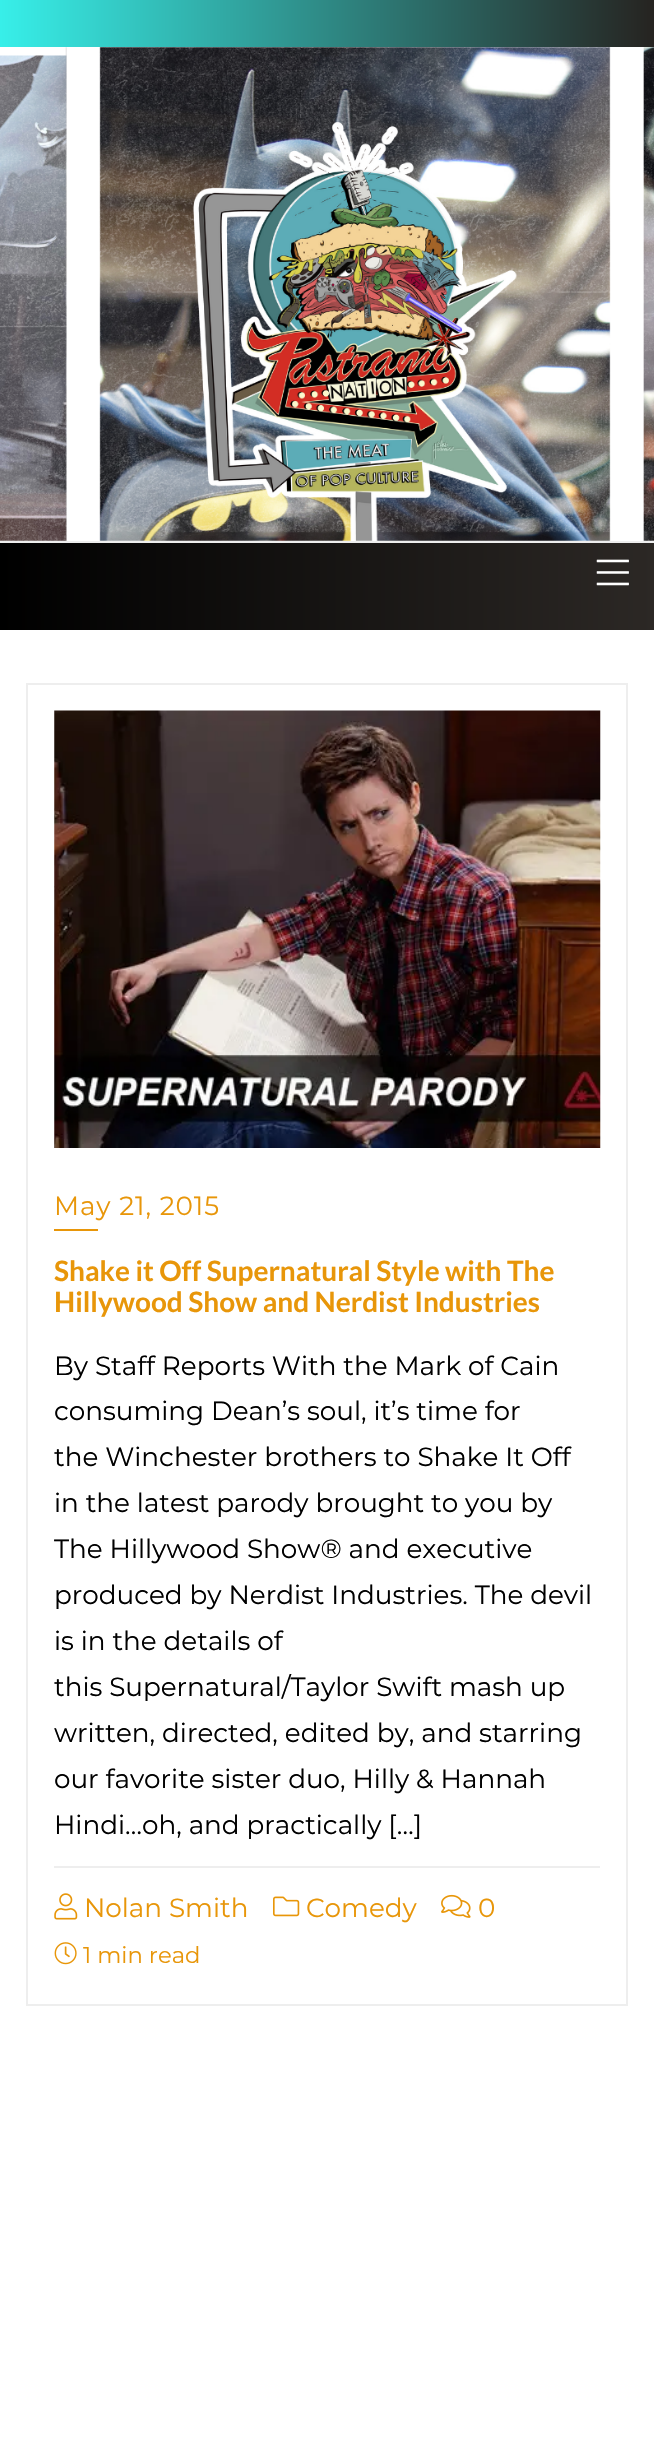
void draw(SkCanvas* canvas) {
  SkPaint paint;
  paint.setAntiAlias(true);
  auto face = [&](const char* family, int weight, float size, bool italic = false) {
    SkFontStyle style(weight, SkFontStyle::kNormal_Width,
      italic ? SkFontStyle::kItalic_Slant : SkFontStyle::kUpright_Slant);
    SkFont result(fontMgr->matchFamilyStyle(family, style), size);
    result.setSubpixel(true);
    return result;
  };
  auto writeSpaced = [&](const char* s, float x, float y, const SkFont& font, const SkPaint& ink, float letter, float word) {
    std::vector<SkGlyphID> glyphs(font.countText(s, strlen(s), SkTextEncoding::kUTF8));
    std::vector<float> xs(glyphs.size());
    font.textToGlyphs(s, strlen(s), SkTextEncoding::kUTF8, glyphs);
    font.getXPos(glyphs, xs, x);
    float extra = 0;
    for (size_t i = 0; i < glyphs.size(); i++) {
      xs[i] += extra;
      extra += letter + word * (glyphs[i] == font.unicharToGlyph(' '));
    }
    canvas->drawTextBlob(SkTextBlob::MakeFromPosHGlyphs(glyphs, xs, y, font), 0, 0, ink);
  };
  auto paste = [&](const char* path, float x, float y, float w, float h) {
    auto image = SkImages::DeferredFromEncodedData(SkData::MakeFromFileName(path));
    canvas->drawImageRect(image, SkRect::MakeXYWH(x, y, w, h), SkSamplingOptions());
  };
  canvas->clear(0xffffffff);
  {
    const SkColor colors[] = {0xff37efe9, 0xff262320};
    const float stops[] = {0, 1};
    const SkPoint ends[] = {{0, 23}, {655, 23}};
    paint.setShader(SkGradientShader::MakeLinear(ends, colors, stops, 2, SkTileMode::kClamp));
    paint.setAlpha(255);
  }
  canvas->drawRect(SkRect::MakeXYWH(0, 0, 654, 47), paint);
  paste("img/1.png", 0, 47, 654, 494);
  paint.setShader(nullptr);
  paint.setColor(0xffeeeeee);
  canvas->drawRect(SkRect::MakeXYWH(0, 541, 654, 2), paint);
  {
    const SkColor colors[] = {0xff000000, 0xff2c2825};
    const float stops[] = {0, 1};
    const SkPoint ends[] = {{0, 586}, {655, 586}};
    paint.setShader(SkGradientShader::MakeLinear(ends, colors, stops, 2, SkTileMode::kClamp));
    paint.setAlpha(255);
  }
  canvas->drawRect(SkRect::MakeXYWH(0, 543, 654, 87), paint);
  paste("img/2.png", 596, 559, 33, 27);
  paint.setStroke(true);
  paint.setStrokeWidth(2);
  paint.setShader(nullptr);
  paint.setColor(0xffeeeeee);
  canvas->drawRect(SkRect::MakeXYWH(27, 684, 600, 1321), paint);
  paste("img/3.png", 54, 710, 547, 438);
  paint.setStroke(false);
  paint.setColor(0xffe89609);
  canvas->drawRect(SkRect::MakeXYWH(54, 1229, 44, 2), paint);
  paint.setColor(0xffeeeeee);
  canvas->drawRect(SkRect::MakeXYWH(54, 1866, 546, 2), paint);
  paste("img/4.png", 54, 1893, 24, 27);
  paste("img/5.png", 273, 1896, 27, 21);
  paste("img/6.png", 441, 1894, 30, 24);
  paste("img/7.png", 54, 1942, 23, 23);
  auto f0 = face("Montserrat", 400, 26.25f);
  paint.setColor(0xffe89609);
  writeSpaced("May 21, 2015", 54, 1215, f0, paint, 0.9f, 0);
  auto f1 = face("Lato", 700, 28);
  canvas->drawString("Shake it Off Supernatural Style with The", 54, 1281, f1, paint);
  canvas->drawString("Hillywood Show and Nerdist Industries", 54, 1312, f1, paint);
  paint.setColor(0xff000000);
  {
    const struct { const char* s; float x, y; } items[] = {
      {"By Staff Reports With the Mark of Cain", 54, 1375},
      {"consuming Dean’s soul, it’s time for", 54, 1420},
      {"the Winchester brothers to Shake It Off", 54, 1466},
      {"in the latest parody brought to you by", 54, 1512},
      {"The Hillywood Show® and executive", 54, 1558},
      {"produced by Nerdist Industries. The devil", 54, 1604},
      {"is in the details of", 54, 1650},
      {"this Supernatural/Taylor Swift mash up", 54, 1696},
      {"written, directed, edited by, and starring", 54, 1742},
      {"our favorite sister duo, Hilly & Hannah", 54, 1788},
      {"Hindi…oh, and practically […]", 54, 1834},
    };
    for (auto [s, x, y] : items) {
      canvas->drawString(s, x, y, f0, paint);
    }
  }
  paint.setColor(0xffe89609);
  {
    const struct { const char* s; float x, y; } items[] = {
      {"Nolan Smith", 84, 1917},
      {"Comedy", 306, 1917},
      {"0", 478, 1917},
    };
    for (auto [s, x, y] : items) {
      canvas->drawString(s, x, y, f0, paint);
    }
  }
  auto f2 = face("Montserrat", 400, 22.75f);
  canvas->drawString("1 min read", 83, 1963, f2, paint);
}
